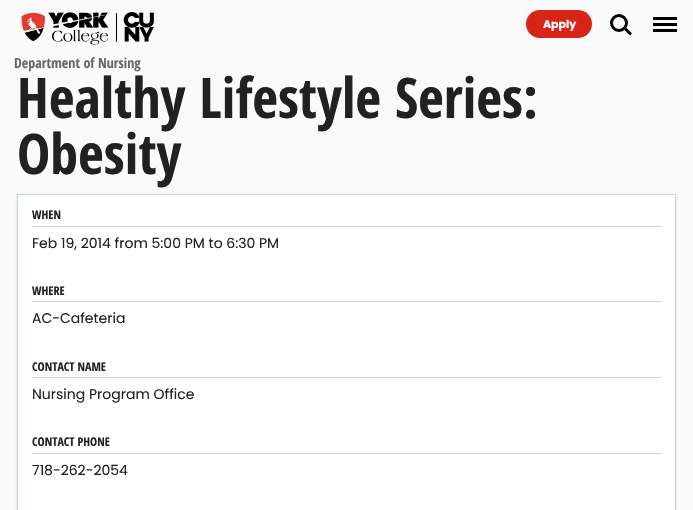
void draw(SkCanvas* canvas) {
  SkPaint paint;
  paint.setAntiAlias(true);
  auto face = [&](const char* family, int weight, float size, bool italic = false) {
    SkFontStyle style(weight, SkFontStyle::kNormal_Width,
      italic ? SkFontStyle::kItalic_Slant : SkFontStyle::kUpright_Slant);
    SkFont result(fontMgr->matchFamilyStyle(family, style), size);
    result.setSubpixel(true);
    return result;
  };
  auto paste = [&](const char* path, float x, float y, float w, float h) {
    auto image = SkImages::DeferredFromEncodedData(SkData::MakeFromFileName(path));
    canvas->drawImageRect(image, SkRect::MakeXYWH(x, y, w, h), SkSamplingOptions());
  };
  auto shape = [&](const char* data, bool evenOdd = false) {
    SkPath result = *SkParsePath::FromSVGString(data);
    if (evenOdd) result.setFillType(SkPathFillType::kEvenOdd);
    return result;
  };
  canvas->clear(0xfffafafa);
  paste("img/1.png", 21, 12, 133, 33);
  paint.setColor(0xffd92518);
  canvas->drawRoundRect(SkRect::MakeXYWH(526, 10, 66, 28), 14, 14, paint);
  paint.setStroke(true);
  paint.setStrokeWidth(3);
  paint.setColor(0xff000000);
  canvas->drawCircle(619, 23, 7.5f, paint);
  paint.setStroke(false);
  canvas->drawPath(shape("M626 27.5L632 33.5L630 35.5L624 29.5Z"), paint);
  {
    const struct { float x, y, w, h; SkColor color; } items[] = {
      {653, 23, 24, 3, 0xff000000},
      {653, 17, 24, 3, 0xff000000},
      {653, 29, 24, 3, 0xff000000},
    };
    for (auto [x, y, w, h, color] : items) {
      paint.setColor(color);
      canvas->drawRect(SkRect::MakeXYWH(x, y, w, h), paint);
    }
  }
  paint.setColor(0xffc7d5d8);
  paint.setMaskFilter(SkMaskFilter::MakeBlur(kNormal_SkBlurStyle, 1));
  canvas->drawRect(SkRect::MakeXYWH(17, 195, 659, 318), paint);
  paint.setMaskFilter(nullptr);
  paint.setColor(0xffffffff);
  canvas->drawRect(SkRect::MakeXYWH(17.5f, 194.5f, 658, 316), paint);
  paint.setStroke(true);
  paint.setStrokeWidth(1);
  paint.setColor(0xffc7d5d8);
  canvas->drawRect(SkRect::MakeXYWH(17.5f, 194.5f, 658, 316), paint);
  paint.setStroke(false);
  {
    const struct { float x, y, w, h; SkColor color; } items[] = {
      {32, 226, 629, 1, 0xffc7d5d8},
      {32, 301, 629, 1, 0xffc7d5d8},
      {32, 377, 629, 1, 0xffc7d5d8},
      {32, 453, 629, 1, 0xffc7d5d8},
    };
    for (auto [x, y, w, h, color] : items) {
      paint.setColor(color);
      canvas->drawRect(SkRect::MakeXYWH(x, y, w, h), paint);
    }
  }
  auto f0 = face("Poppins", 700, 11);
  paint.setColor(0xffffffff);
  canvas->drawString("Apply", 543, 28, f0, paint);
  auto f1 = face("Open Sans Condensed", 700, 14);
  paint.setColor(0xff676767);
  canvas->drawString("Department of Nursing", 14, 68, f1, paint);
  auto f2 = face("Open Sans Condensed", 700, 56);
  paint.setColor(0xff212121);
  canvas->drawString("Healthy Lifestyle Series:", 17, 118, f2, paint);
  canvas->drawString("Obesity", 17, 174, f2, paint);
  auto f3 = face("Open Sans Condensed", 700, 12);
  canvas->drawString("WHEN", 32, 219, f3, paint);
  auto f4 = face("Poppins", 400, 14);
  canvas->drawString("Feb 19, 2014 from 5:00 PM to 6:30 PM", 32, 248, f4, paint);
  canvas->drawString("WHERE", 32, 295, f3, paint);
  canvas->drawString("AC-Cafeteria", 32, 323, f4, paint);
  canvas->drawString("CONTACT NAME", 32, 371, f3, paint);
  canvas->drawString("Nursing Program Office", 32, 399, f4, paint);
  canvas->drawString("CONTACT PHONE", 32, 446, f3, paint);
  canvas->drawString("718-262-2054", 32, 475, f4, paint);
}
